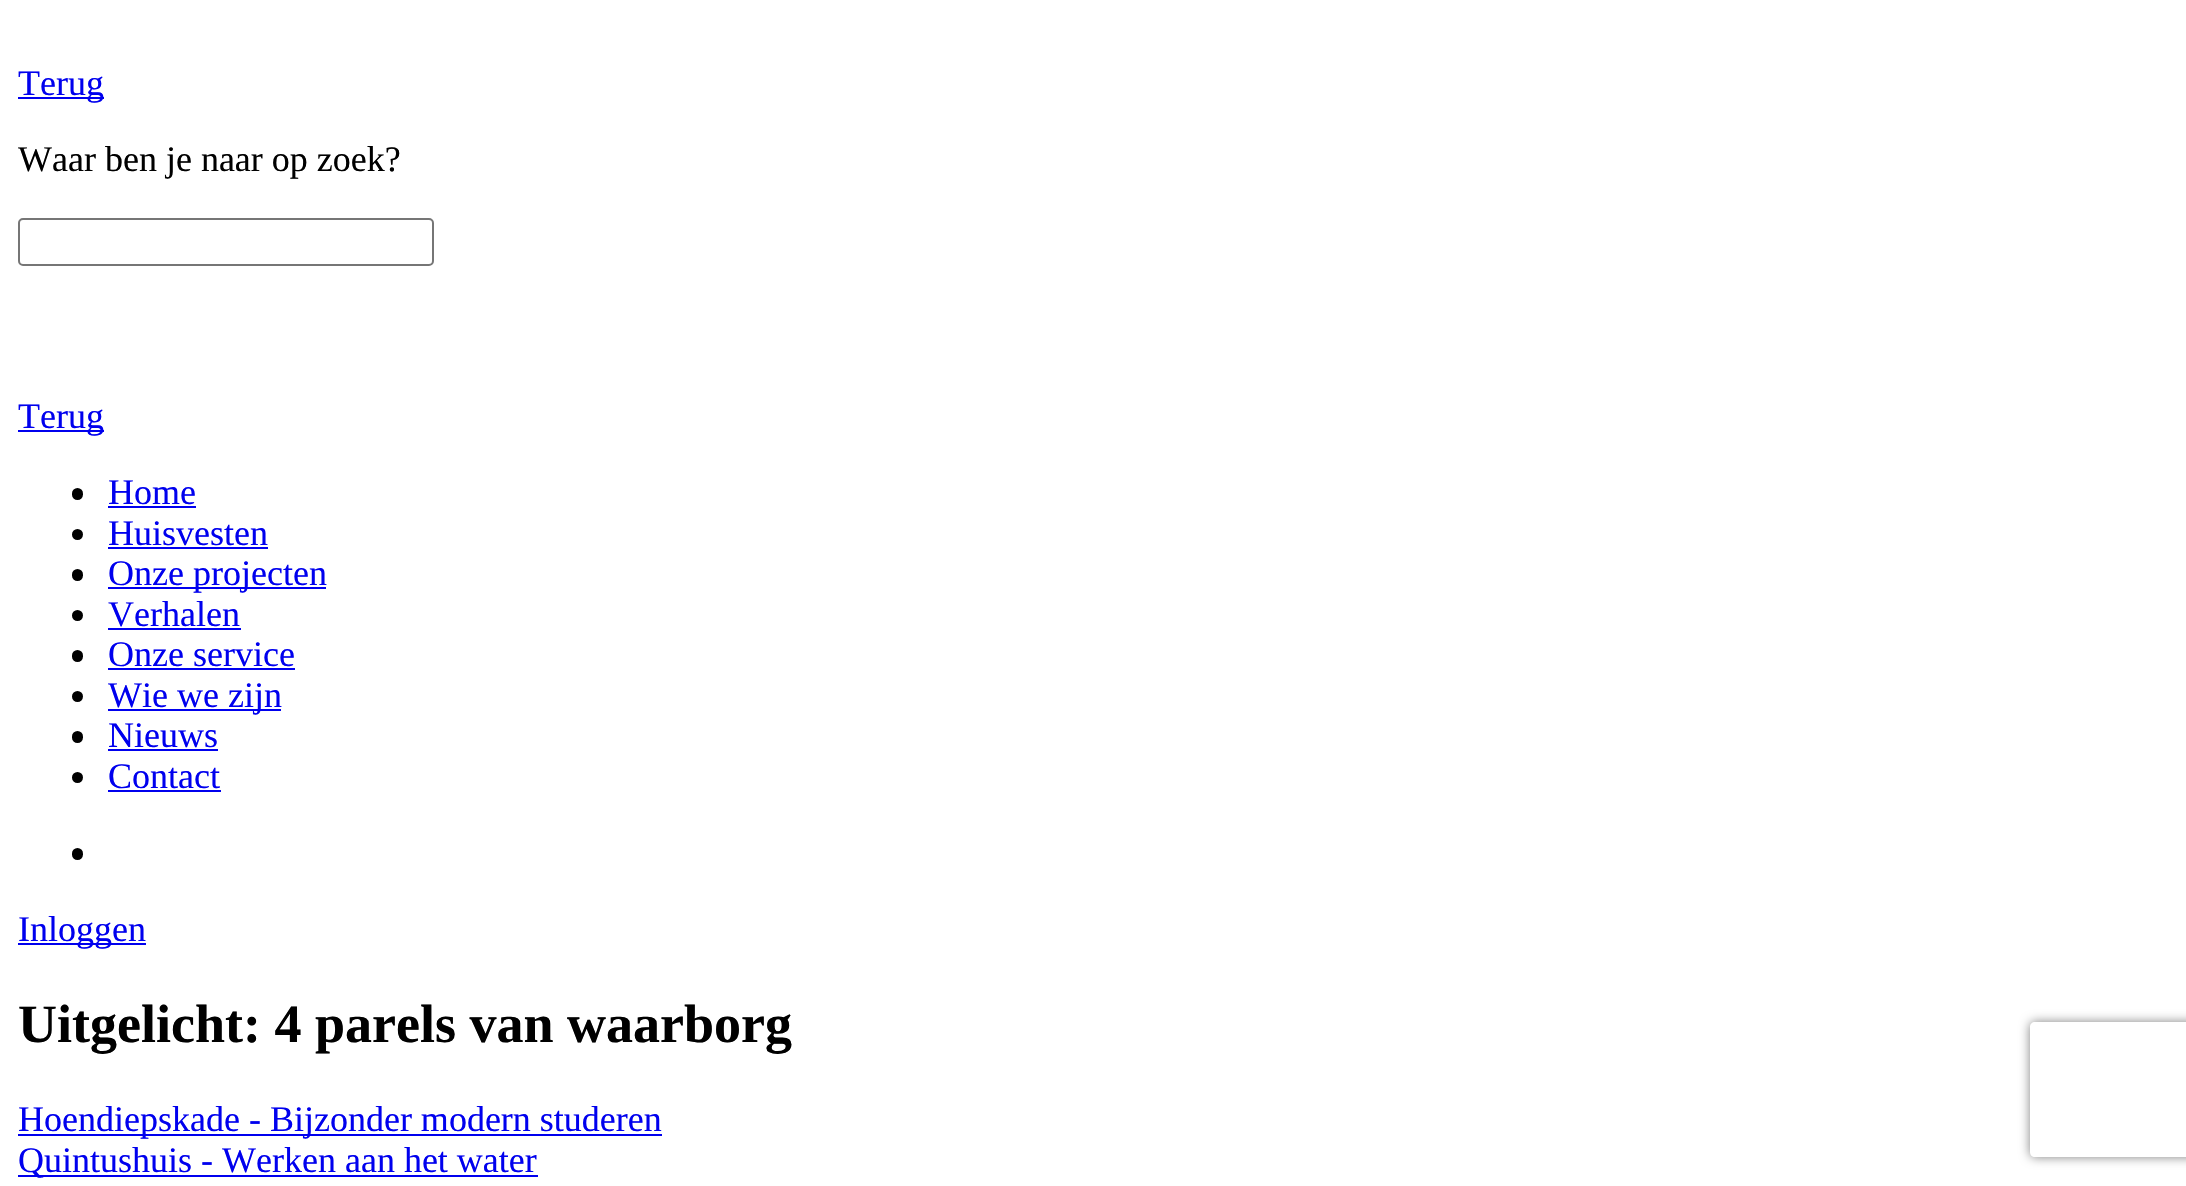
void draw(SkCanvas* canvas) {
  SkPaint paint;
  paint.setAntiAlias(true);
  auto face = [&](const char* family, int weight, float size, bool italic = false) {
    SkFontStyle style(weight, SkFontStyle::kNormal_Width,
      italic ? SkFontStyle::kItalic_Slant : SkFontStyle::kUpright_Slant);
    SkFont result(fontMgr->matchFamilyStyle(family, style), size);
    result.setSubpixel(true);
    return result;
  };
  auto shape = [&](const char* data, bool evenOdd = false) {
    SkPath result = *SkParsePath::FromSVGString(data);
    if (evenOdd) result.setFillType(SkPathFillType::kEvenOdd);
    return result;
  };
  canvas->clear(0xffffffff);
  paint.setColor(0xff0000ee);
  canvas->drawRect(SkRect::MakeXYWH(18, 97, 86, 2), paint);
  paint.setStroke(true);
  paint.setStrokeWidth(2);
  paint.setColor(0xff767676);
  canvas->drawRoundRect(SkRect::MakeXYWH(19, 219, 414, 46), 4, 4, paint);
  paint.setStroke(false);
  paint.setColor(0xff0000ee);
  canvas->drawRect(SkRect::MakeXYWH(18, 430, 86, 2), paint);
  paint.setColor(0xff000000);
  canvas->drawRoundRect(SkRect::MakeXYWH(72, 488, 11, 12), 5.5f, 5.5f, paint);
  paint.setColor(0xff0000ee);
  canvas->drawRect(SkRect::MakeXYWH(108, 506, 88, 2), paint);
  paint.setColor(0xff000000);
  canvas->drawCircle(77.5f, 534.5f, 5.5f, paint);
  paint.setColor(0xff0000ee);
  canvas->drawRect(SkRect::MakeXYWH(108, 547, 160, 2), paint);
  paint.setColor(0xff000000);
  canvas->drawRoundRect(SkRect::MakeXYWH(72, 569, 11, 12), 5.5f, 5.5f, paint);
  paint.setColor(0xff0000ee);
  canvas->drawRect(SkRect::MakeXYWH(108, 587, 218, 2), paint);
  paint.setColor(0xff000000);
  canvas->drawCircle(77.5f, 615.5f, 5.5f, paint);
  paint.setColor(0xff0000ee);
  canvas->drawRect(SkRect::MakeXYWH(108, 628, 133, 2), paint);
  paint.setColor(0xff000000);
  canvas->drawRoundRect(SkRect::MakeXYWH(72, 650, 11, 12), 5.5f, 5.5f, paint);
  paint.setColor(0xff0000ee);
  canvas->drawRect(SkRect::MakeXYWH(108, 668, 187, 2), paint);
  paint.setColor(0xff000000);
  canvas->drawCircle(77.5f, 696.5f, 5.5f, paint);
  paint.setColor(0xff0000ee);
  canvas->drawRect(SkRect::MakeXYWH(108, 709, 173, 2), paint);
  paint.setColor(0xff000000);
  canvas->drawRoundRect(SkRect::MakeXYWH(72, 731, 11, 12), 5.5f, 5.5f, paint);
  paint.setColor(0xff0000ee);
  canvas->drawRect(SkRect::MakeXYWH(108, 749, 110, 2), paint);
  paint.setColor(0xff000000);
  canvas->drawCircle(77.5f, 777.5f, 5.5f, paint);
  paint.setColor(0xff0000ee);
  canvas->drawRect(SkRect::MakeXYWH(108, 790, 113, 2), paint);
  paint.setColor(0xff000000);
  canvas->drawRoundRect(SkRect::MakeXYWH(72, 848, 11, 12), 5.5f, 5.5f, paint);
  {
    const struct { float x, y, w, h; SkColor color; } items[] = {
      {18, 943, 128, 2, 0xff0000ee},
      {18, 1134, 644, 2, 0xff0000ee},
      {18, 1175, 520, 2, 0xff0000ee},
    };
    for (auto [x, y, w, h, color] : items) {
      paint.setColor(color);
      canvas->drawRect(SkRect::MakeXYWH(x, y, w, h), paint);
    }
  }
  canvas->save();
  canvas->clipPath(shape("M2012 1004H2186V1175H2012ZM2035 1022H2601C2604 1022 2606 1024 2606 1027V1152C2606 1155 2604 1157 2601 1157H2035C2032 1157 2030 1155 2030 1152V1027C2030 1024 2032 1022 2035 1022Z", true), true);
  paint.setColor(0xff808080);
  paint.setMaskFilter(SkMaskFilter::MakeBlur(kNormal_SkBlurStyle, 5.5f));
  canvas->drawRoundRect(SkRect::MakeXYWH(2030, 1022, 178, 135), 5, 5, paint);
  paint.setMaskFilter(nullptr);
  canvas->restore();
  auto f0 = face("Liberation Serif", 400, 36);
  paint.setColor(0xff0000ee);
  canvas->drawString("Terug", 18, 95, f0, paint);
  paint.setColor(0xff000000);
  canvas->drawString("Waar ben je naar op zoek?", 18, 171, f0, paint);
  paint.setColor(0xff0000ee);
  {
    const struct { const char* s; float x, y; } items[] = {
      {"Terug", 18, 428},
      {"Home", 108, 504},
      {"Huisvesten", 108, 545},
      {"Onze projecten", 108, 585},
      {"Verhalen", 108, 626},
      {"Onze service", 108, 666},
      {"Wie we zijn", 108, 707},
      {"Nieuws", 108, 747},
      {"Contact", 108, 788},
      {"Inloggen", 18, 941},
    };
    for (auto [s, x, y] : items) {
      canvas->drawString(s, x, y, f0, paint);
    }
  }
  auto f1 = face("Liberation Serif", 700, 54);
  paint.setColor(0xff000000);
  canvas->drawString("Uitgelicht: 4 parels van waarborg", 18, 1042, f1, paint);
  paint.setColor(0xff0000ee);
  canvas->drawString("Hoendiepskade - Bijzonder modern studeren", 18, 1131, f0, paint);
  canvas->drawString("Quintushuis - Werken aan het water", 18, 1172, f0, paint);
}
